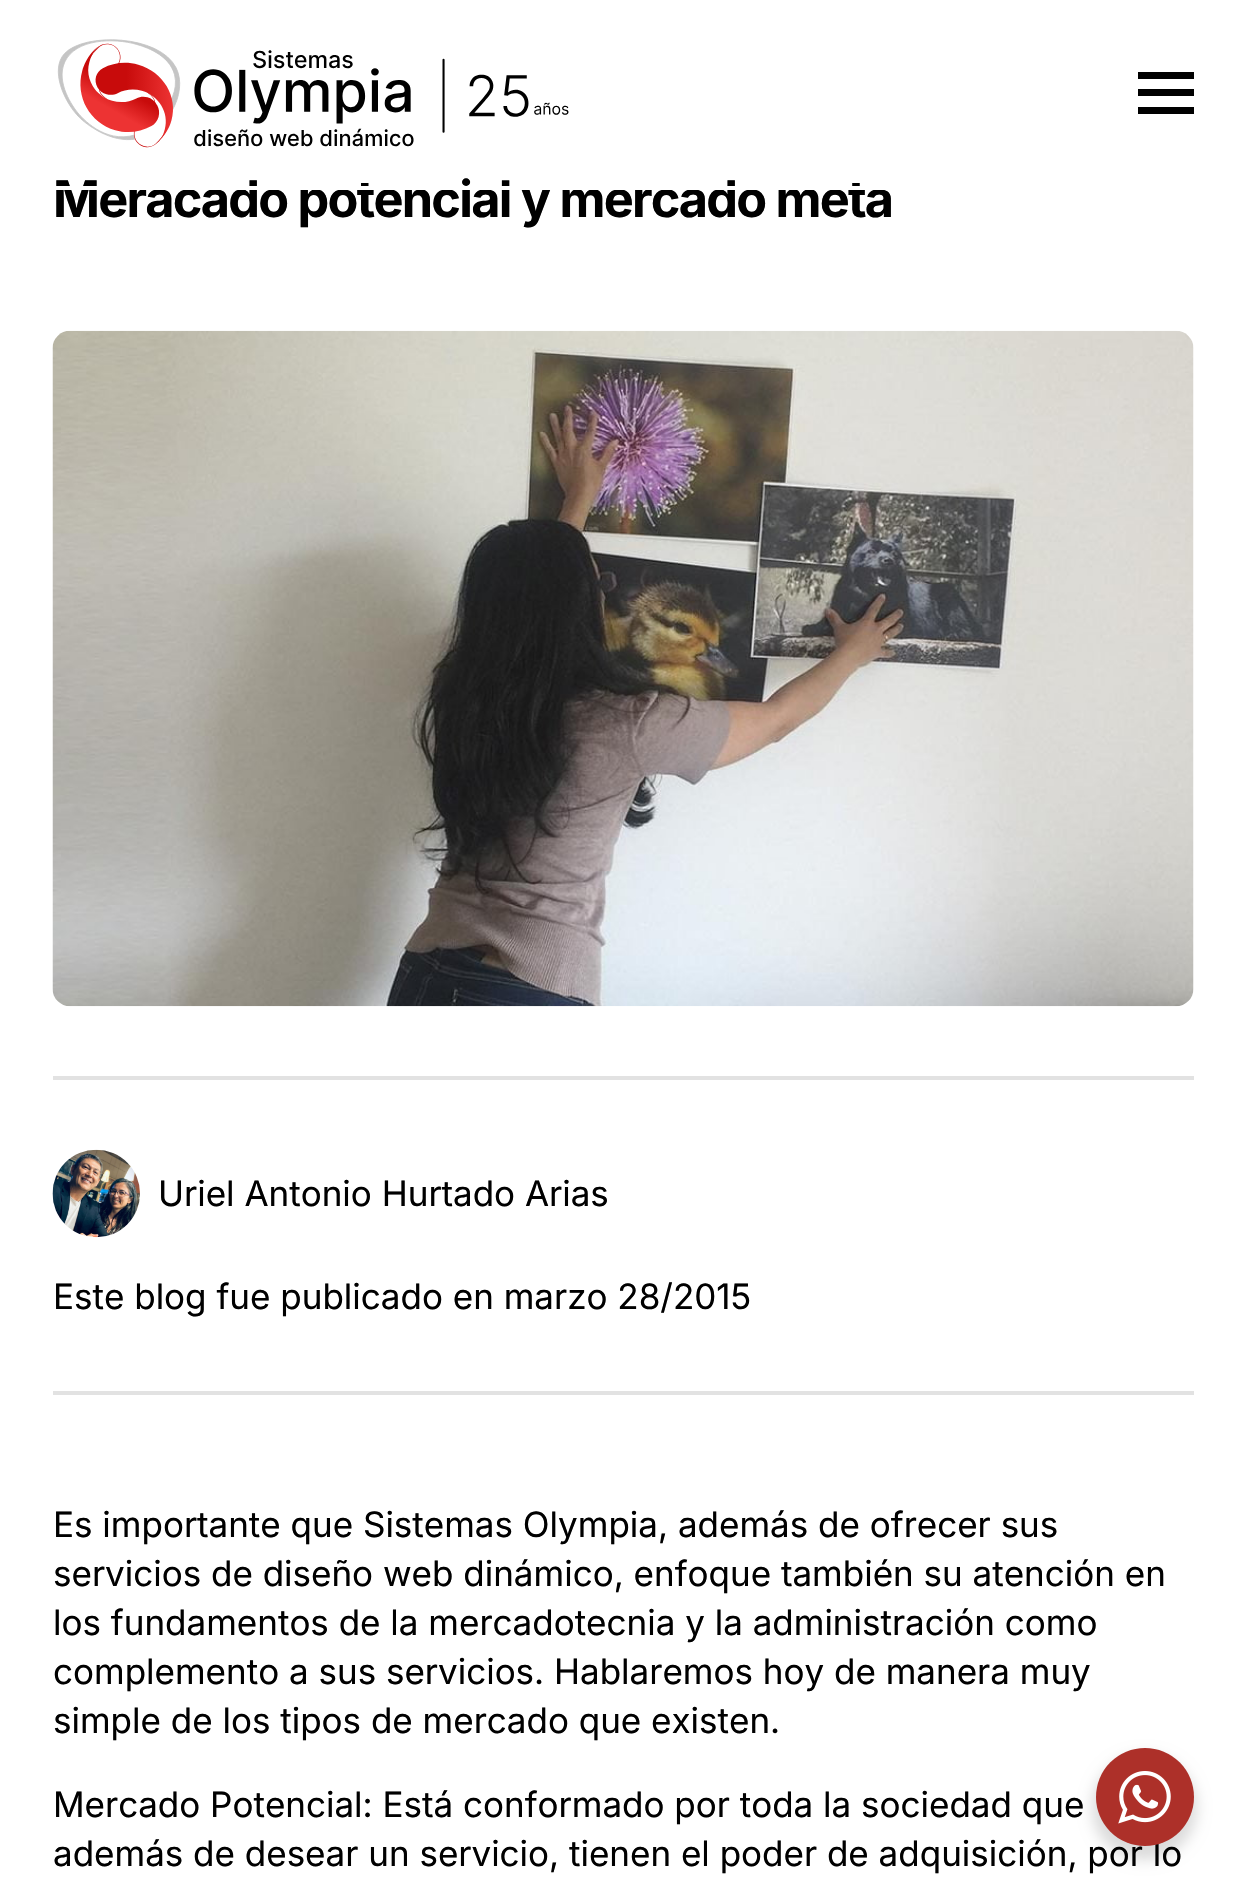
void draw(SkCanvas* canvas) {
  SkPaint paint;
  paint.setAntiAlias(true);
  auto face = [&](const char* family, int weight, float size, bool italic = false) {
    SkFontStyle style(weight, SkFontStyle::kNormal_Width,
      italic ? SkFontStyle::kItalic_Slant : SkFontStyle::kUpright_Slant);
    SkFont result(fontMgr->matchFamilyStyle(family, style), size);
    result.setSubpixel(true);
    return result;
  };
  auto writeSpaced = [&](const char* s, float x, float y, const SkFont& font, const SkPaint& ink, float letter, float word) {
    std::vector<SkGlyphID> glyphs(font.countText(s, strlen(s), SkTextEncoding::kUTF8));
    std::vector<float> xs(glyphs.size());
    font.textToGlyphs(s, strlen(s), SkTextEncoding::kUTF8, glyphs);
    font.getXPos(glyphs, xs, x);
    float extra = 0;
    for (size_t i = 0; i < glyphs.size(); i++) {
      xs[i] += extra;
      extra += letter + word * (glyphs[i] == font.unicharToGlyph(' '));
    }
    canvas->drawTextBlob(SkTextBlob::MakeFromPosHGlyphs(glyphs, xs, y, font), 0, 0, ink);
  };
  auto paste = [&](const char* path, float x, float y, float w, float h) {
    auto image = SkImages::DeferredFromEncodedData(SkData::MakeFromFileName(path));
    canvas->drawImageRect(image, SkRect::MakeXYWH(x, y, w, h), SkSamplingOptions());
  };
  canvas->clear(0xffffffff);
  paste("img/1.png", 57, 39, 512, 109);
  {
    const struct { float x, y, w, h; SkColor color; } items[] = {
      {1138, 107, 56, 7, 0xff000000},
      {1138, 72, 56, 7, 0xff000000},
      {1138, 89, 56, 7, 0xff000000},
    };
    for (auto [x, y, w, h, color] : items) {
      paint.setColor(color);
      canvas->drawRect(SkRect::MakeXYWH(x, y, w, h), paint);
    }
  }
  paste("img/2.png", 52, 330, 1142, 677);
  paint.setColor(0xffe2e2e2);
  canvas->drawRect(SkRect::MakeXYWH(53, 1076, 1141, 4), paint);
  paste("img/3.png", 52, 1149, 88, 89);
  canvas->drawRect(SkRect::MakeXYWH(53, 1391, 1141, 4), paint);
  paint.setColor(0x24000000);
  paint.setMaskFilter(SkMaskFilter::MakeBlur(kNormal_SkBlurStyle, 7));
  canvas->drawRoundRect(SkRect::MakeXYWH(1092, 1755, 105, 105), 52.5f, 52.5f, paint);
  paint.setMaskFilter(nullptr);
  auto f0 = face("Inter", 700, 50.4f);
  paint.setColor(0xff000000);
  writeSpaced("Meracado potencial y mercado meta", 53, 217, f0, paint, -1.75f, 0);
  paint.setColor(0xffffffff);
  canvas->drawRect(SkRect::MakeXYWH(55, 186, 829, 4), paint);
  auto f1 = face("Inter", 400, 35);
  paint.setColor(0xff000000);
  {
    const struct { const char* s; float x, y; } items[] = {
      {"Uriel Antonio Hurtado Arias", 158, 1206},
      {"Este blog fue publicado en marzo 28/2015", 53, 1309},
      {"Es importante que Sistemas Olympia, además de ofrecer sus", 53, 1537},
      {"servicios de diseño web dinámico, enfoque también su atención en", 53, 1586},
      {"los fundamentos de la mercadotecnia y la administración como", 53, 1635},
      {"complemento a sus servicios. Hablaremos hoy de manera muy", 53, 1684},
      {"simple de los tipos de mercado que existen.", 53, 1733},
      {"Mercado Potencial: Está conformado por toda la sociedad que", 53, 1817},
      {"además de desear un servicio, tienen el poder de adquisición, por lo", 53, 1866},
    };
    for (auto [s, x, y] : items) {
      canvas->drawString(s, x, y, f1, paint);
    }
  }
  paint.setColor(0xffad3029);
  canvas->drawCircle(1145, 1797, 49, paint);
  paste("img/4.png", 1118, 1771, 53, 53);
}
